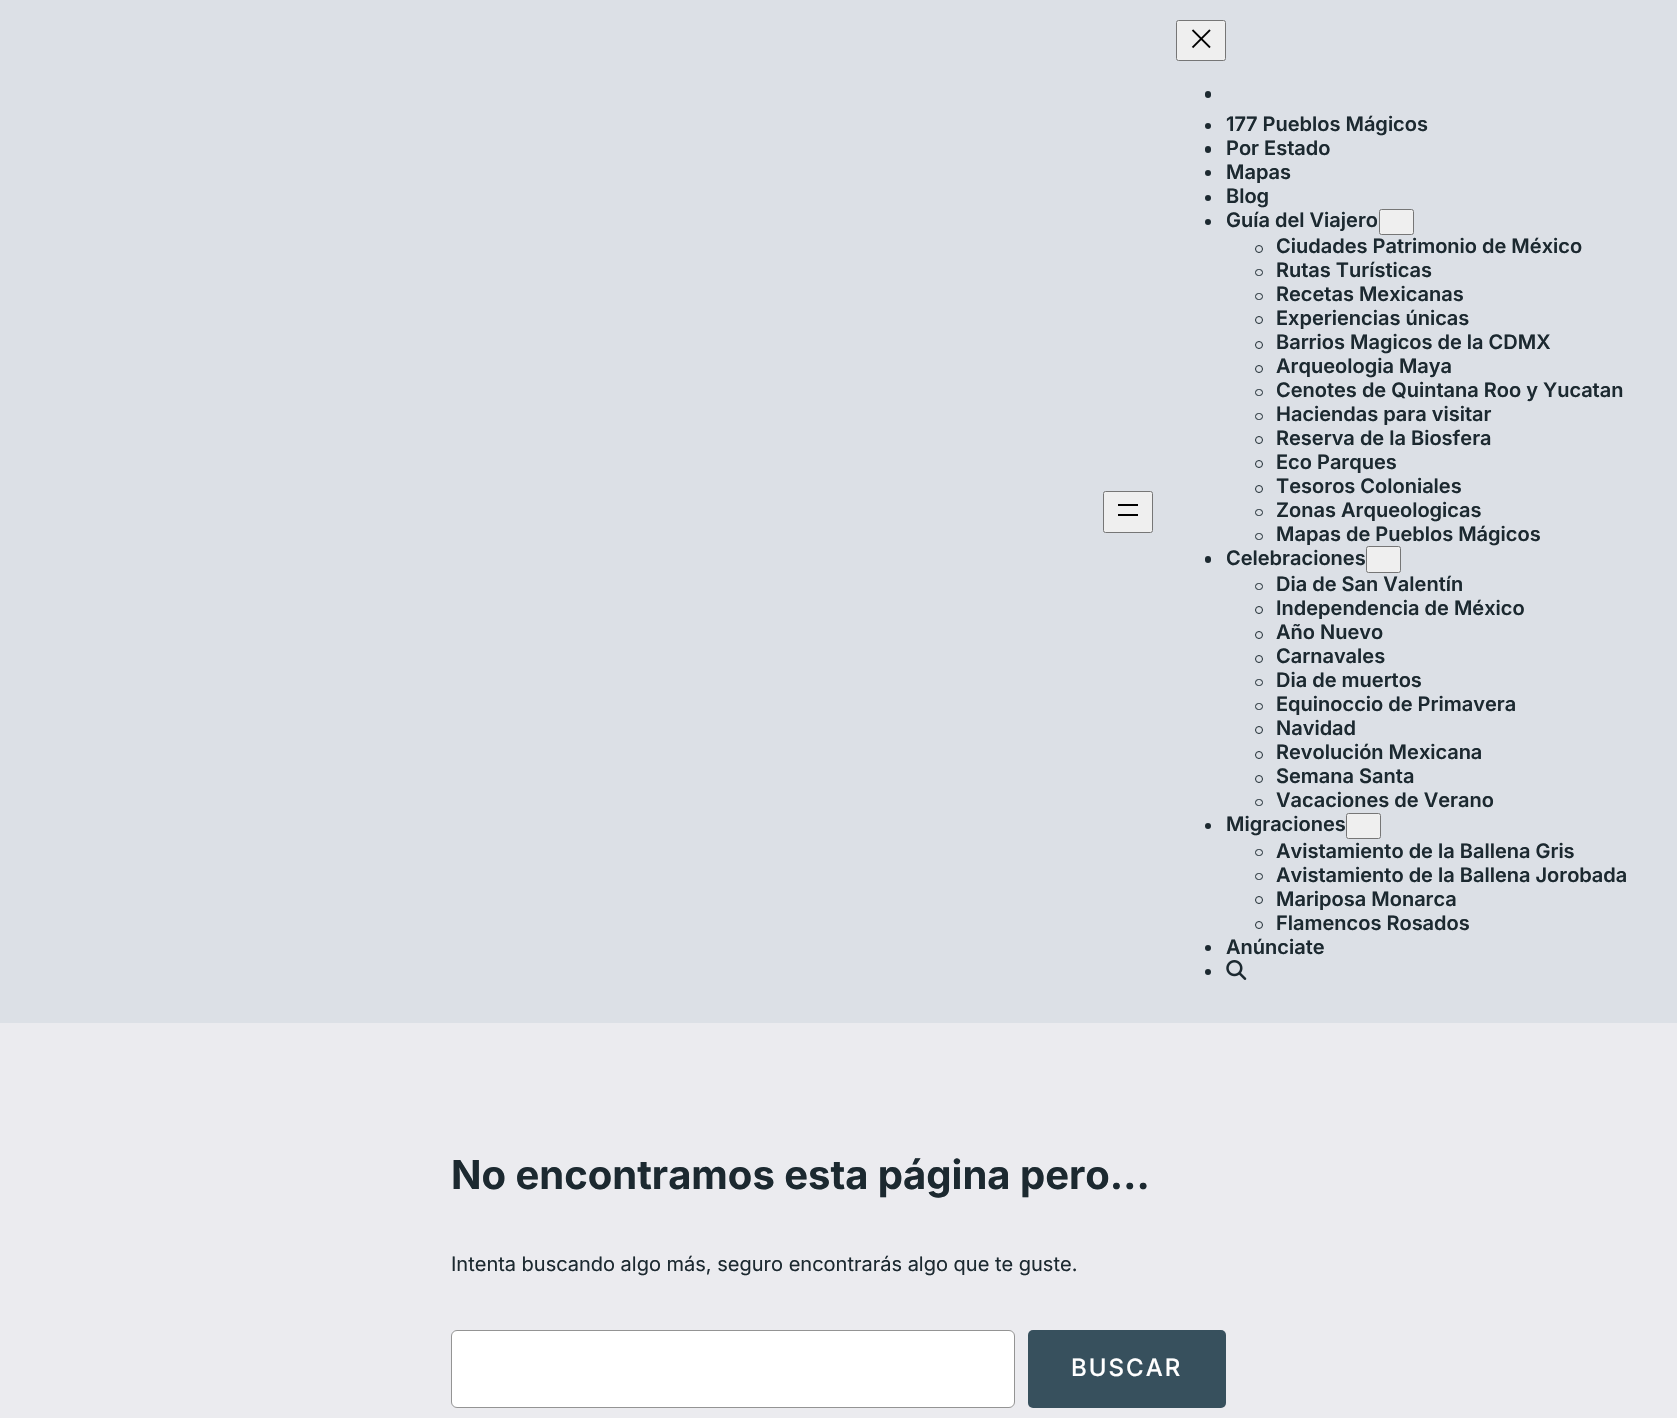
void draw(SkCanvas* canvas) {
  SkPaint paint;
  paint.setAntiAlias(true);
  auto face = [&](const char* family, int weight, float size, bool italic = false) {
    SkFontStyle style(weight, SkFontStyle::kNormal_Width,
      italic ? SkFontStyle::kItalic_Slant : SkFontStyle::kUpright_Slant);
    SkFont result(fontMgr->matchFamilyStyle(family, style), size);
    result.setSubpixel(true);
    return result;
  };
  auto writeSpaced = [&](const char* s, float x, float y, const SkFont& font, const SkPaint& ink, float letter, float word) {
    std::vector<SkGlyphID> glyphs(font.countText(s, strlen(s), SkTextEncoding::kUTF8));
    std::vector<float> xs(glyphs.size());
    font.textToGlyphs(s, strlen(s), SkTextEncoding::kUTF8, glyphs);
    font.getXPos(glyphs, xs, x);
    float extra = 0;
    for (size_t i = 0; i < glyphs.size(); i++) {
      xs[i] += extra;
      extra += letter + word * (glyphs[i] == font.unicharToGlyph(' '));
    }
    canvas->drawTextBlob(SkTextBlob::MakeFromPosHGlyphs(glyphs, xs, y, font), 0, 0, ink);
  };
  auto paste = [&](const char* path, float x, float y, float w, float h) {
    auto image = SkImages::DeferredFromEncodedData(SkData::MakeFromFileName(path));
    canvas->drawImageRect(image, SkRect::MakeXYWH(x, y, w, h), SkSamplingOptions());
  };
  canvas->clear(0xffebebef);
  paint.setColor(0xffdce0e6);
  canvas->drawRect(SkRect::MakeXYWH(0, 0, 1677, 1023), paint);
  paint.setColor(0xffefefef);
  canvas->drawRoundRect(SkRect::MakeXYWH(1103.5f, 491.5f, 49, 41), 2, 2, paint);
  paint.setStroke(true);
  paint.setStrokeWidth(1);
  paint.setColor(0xff767676);
  canvas->drawRoundRect(SkRect::MakeXYWH(1103.5f, 491.5f, 49, 41), 2, 2, paint);
  paint.setStroke(false);
  paint.setColor(0xff000000);
  canvas->drawRect(SkRect::MakeXYWH(1118, 504, 20, 2), paint);
  canvas->drawRect(SkRect::MakeXYWH(1118, 514, 20, 2), paint);
  paint.setColor(0xffefefef);
  canvas->drawRoundRect(SkRect::MakeXYWH(1176.5f, 20.5f, 49, 40), 2, 2, paint);
  paint.setStroke(true);
  paint.setColor(0xff767676);
  canvas->drawRoundRect(SkRect::MakeXYWH(1176.5f, 20.5f, 49, 40), 2, 2, paint);
  paste("img/1.png", 1191, 29, 20, 20);
  paint.setStroke(false);
  paint.setColor(0xff1c2930);
  canvas->drawRoundRect(SkRect::MakeXYWH(1205, 91, 6, 7), 3, 3, paint);
  canvas->drawCircle(1208, 126, 3, paint);
  canvas->drawRoundRect(SkRect::MakeXYWH(1205, 146, 6, 7), 3, 3, paint);
  canvas->drawCircle(1208, 173, 3, paint);
  canvas->drawCircle(1208, 198, 3, paint);
  canvas->drawCircle(1208, 222, 3, paint);
  paint.setColor(0xffefefef);
  canvas->drawRoundRect(SkRect::MakeXYWH(1379.5f, 209.5f, 34, 25), 2, 2, paint);
  paint.setStroke(true);
  paint.setColor(0xff767676);
  canvas->drawRoundRect(SkRect::MakeXYWH(1379.5f, 209.5f, 34, 25), 2, 2, paint);
  paint.setColor(0xff1c2930);
  canvas->drawCircle(1259, 249, 3.5f, paint);
  canvas->drawRoundRect(SkRect::MakeXYWH(1255.5f, 269.5f, 7, 6), 3, 3, paint);
  canvas->drawRoundRect(SkRect::MakeXYWH(1255.5f, 293.5f, 7, 6), 3, 3, paint);
  canvas->drawCircle(1259, 320, 3.5f, paint);
  canvas->drawCircle(1259, 345, 3.5f, paint);
  canvas->drawCircle(1259, 369, 3.5f, paint);
  canvas->drawRoundRect(SkRect::MakeXYWH(1255.5f, 389.5f, 7, 6), 3, 3, paint);
  canvas->drawRoundRect(SkRect::MakeXYWH(1255.5f, 413.5f, 7, 6), 3, 3, paint);
  canvas->drawCircle(1259, 440, 3.5f, paint);
  canvas->drawCircle(1259, 464, 3.5f, paint);
  canvas->drawCircle(1259, 489, 3.5f, paint);
  canvas->drawRoundRect(SkRect::MakeXYWH(1255.5f, 509.5f, 7, 6), 3, 3, paint);
  canvas->drawRoundRect(SkRect::MakeXYWH(1255.5f, 533.5f, 7, 6), 3, 3, paint);
  paint.setStroke(false);
  canvas->drawRoundRect(SkRect::MakeXYWH(1205, 556, 6, 7), 3, 3, paint);
  paint.setColor(0xffefefef);
  canvas->drawRoundRect(SkRect::MakeXYWH(1366.5f, 546.5f, 34, 26), 2, 2, paint);
  paint.setStroke(true);
  paint.setColor(0xff767676);
  canvas->drawRoundRect(SkRect::MakeXYWH(1366.5f, 546.5f, 34, 26), 2, 2, paint);
  paint.setColor(0xff1c2930);
  canvas->drawRoundRect(SkRect::MakeXYWH(1255.5f, 583.5f, 7, 6), 3, 3, paint);
  canvas->drawCircle(1259, 610, 3.5f, paint);
  canvas->drawCircle(1259, 635, 3.5f, paint);
  canvas->drawCircle(1259, 659, 3.5f, paint);
  canvas->drawRoundRect(SkRect::MakeXYWH(1255.5f, 679.5f, 7, 6), 3, 3, paint);
  canvas->drawRoundRect(SkRect::MakeXYWH(1255.5f, 703.5f, 7, 6), 3, 3, paint);
  canvas->drawCircle(1259, 730, 3.5f, paint);
  canvas->drawCircle(1259, 755, 3.5f, paint);
  canvas->drawCircle(1259, 779, 3.5f, paint);
  canvas->drawRoundRect(SkRect::MakeXYWH(1255.5f, 799.5f, 7, 6), 3, 3, paint);
  paint.setStroke(false);
  canvas->drawCircle(1208, 826, 3, paint);
  paint.setColor(0xffefefef);
  canvas->drawRoundRect(SkRect::MakeXYWH(1346.5f, 813.5f, 34, 25), 2, 2, paint);
  paint.setStroke(true);
  paint.setColor(0xff767676);
  canvas->drawRoundRect(SkRect::MakeXYWH(1346.5f, 813.5f, 34, 25), 2, 2, paint);
  paint.setColor(0xff1c2930);
  canvas->drawRoundRect(SkRect::MakeXYWH(1255.5f, 849.5f, 7, 6), 3, 3, paint);
  canvas->drawRoundRect(SkRect::MakeXYWH(1255.5f, 873.5f, 7, 6), 3, 3, paint);
  canvas->drawCircle(1259, 900, 3.5f, paint);
  canvas->drawCircle(1259, 925, 3.5f, paint);
  paint.setStroke(false);
  canvas->drawCircle(1208, 948, 3, paint);
  canvas->drawCircle(1208, 972, 3, paint);
  paste("img/2.png", 1226, 960, 21, 20);
  paint.setColor(0xffffffff);
  canvas->drawRoundRect(SkRect::MakeXYWH(451.5f, 1330.5f, 563, 77), 5.5f, 5.5f, paint);
  paint.setStroke(true);
  paint.setColor(0xff949494);
  canvas->drawRoundRect(SkRect::MakeXYWH(451.5f, 1330.5f, 563, 77), 5.5f, 5.5f, paint);
  paint.setStroke(false);
  paint.setColor(0xff37505d);
  canvas->drawRoundRect(SkRect::MakeXYWH(1028, 1330, 198, 78), 5, 5, paint);
  auto f0 = face("Inter", 600, 20);
  paint.setColor(0xff1c2930);
  {
    const struct { const char* s; float x, y; } items[] = {
      {"177 Pueblos Mágicos", 1226, 131},
      {"Por Estado", 1226, 155},
      {"Mapas", 1226, 179},
      {"Blog", 1226, 203},
      {"Guía del Viajero", 1226, 227},
      {"Ciudades Patrimonio de México", 1276, 253},
      {"Rutas Turísticas", 1276, 277},
      {"Recetas Mexicanas", 1276, 301},
      {"Experiencias únicas", 1276, 325},
      {"Barrios Magicos de la CDMX", 1276, 349},
      {"Arqueologia Maya", 1276, 373},
      {"Cenotes de Quintana Roo y Yucatan", 1276, 397},
      {"Haciendas para visitar", 1276, 421},
      {"Reserva de la Biosfera", 1276, 445},
      {"Eco Parques", 1276, 469},
      {"Tesoros Coloniales", 1276, 493},
      {"Zonas Arqueologicas", 1276, 517},
      {"Mapas de Pueblos Mágicos", 1276, 541},
      {"Celebraciones", 1226, 565},
      {"Dia de San Valentín", 1276, 591},
      {"Independencia de México", 1276, 615},
      {"Año Nuevo", 1276, 639},
      {"Carnavales", 1276, 663},
      {"Dia de muertos", 1276, 687},
      {"Equinoccio de Primavera", 1276, 711},
      {"Navidad", 1276, 735},
      {"Revolución Mexicana", 1276, 759},
      {"Semana Santa", 1276, 783},
      {"Vacaciones de Verano", 1276, 807},
      {"Migraciones", 1226, 831},
      {"Avistamiento de la Ballena Gris", 1276, 858},
      {"Avistamiento de la Ballena Jorobada", 1276, 882},
      {"Mariposa Monarca", 1276, 906},
      {"Flamencos Rosados", 1276, 930},
      {"Anúnciate", 1226, 954},
    };
    for (auto [s, x, y] : items) {
      canvas->drawString(s, x, y, f0, paint);
    }
  }
  auto f1 = face("Inter", 700, 40);
  canvas->drawString("No encontramos esta página pero…", 451, 1189, f1, paint);
  auto f2 = face("Inter", 400, 20);
  canvas->drawString("Intenta buscando algo más, seguro encontrarás algo que te guste.", 451, 1271, f2, paint);
  auto f3 = face("Inter", 500, 24);
  paint.setColor(0xffffffff);
  writeSpaced("BUSCAR", 1071, 1376, f3, paint, 2, 0);
}
